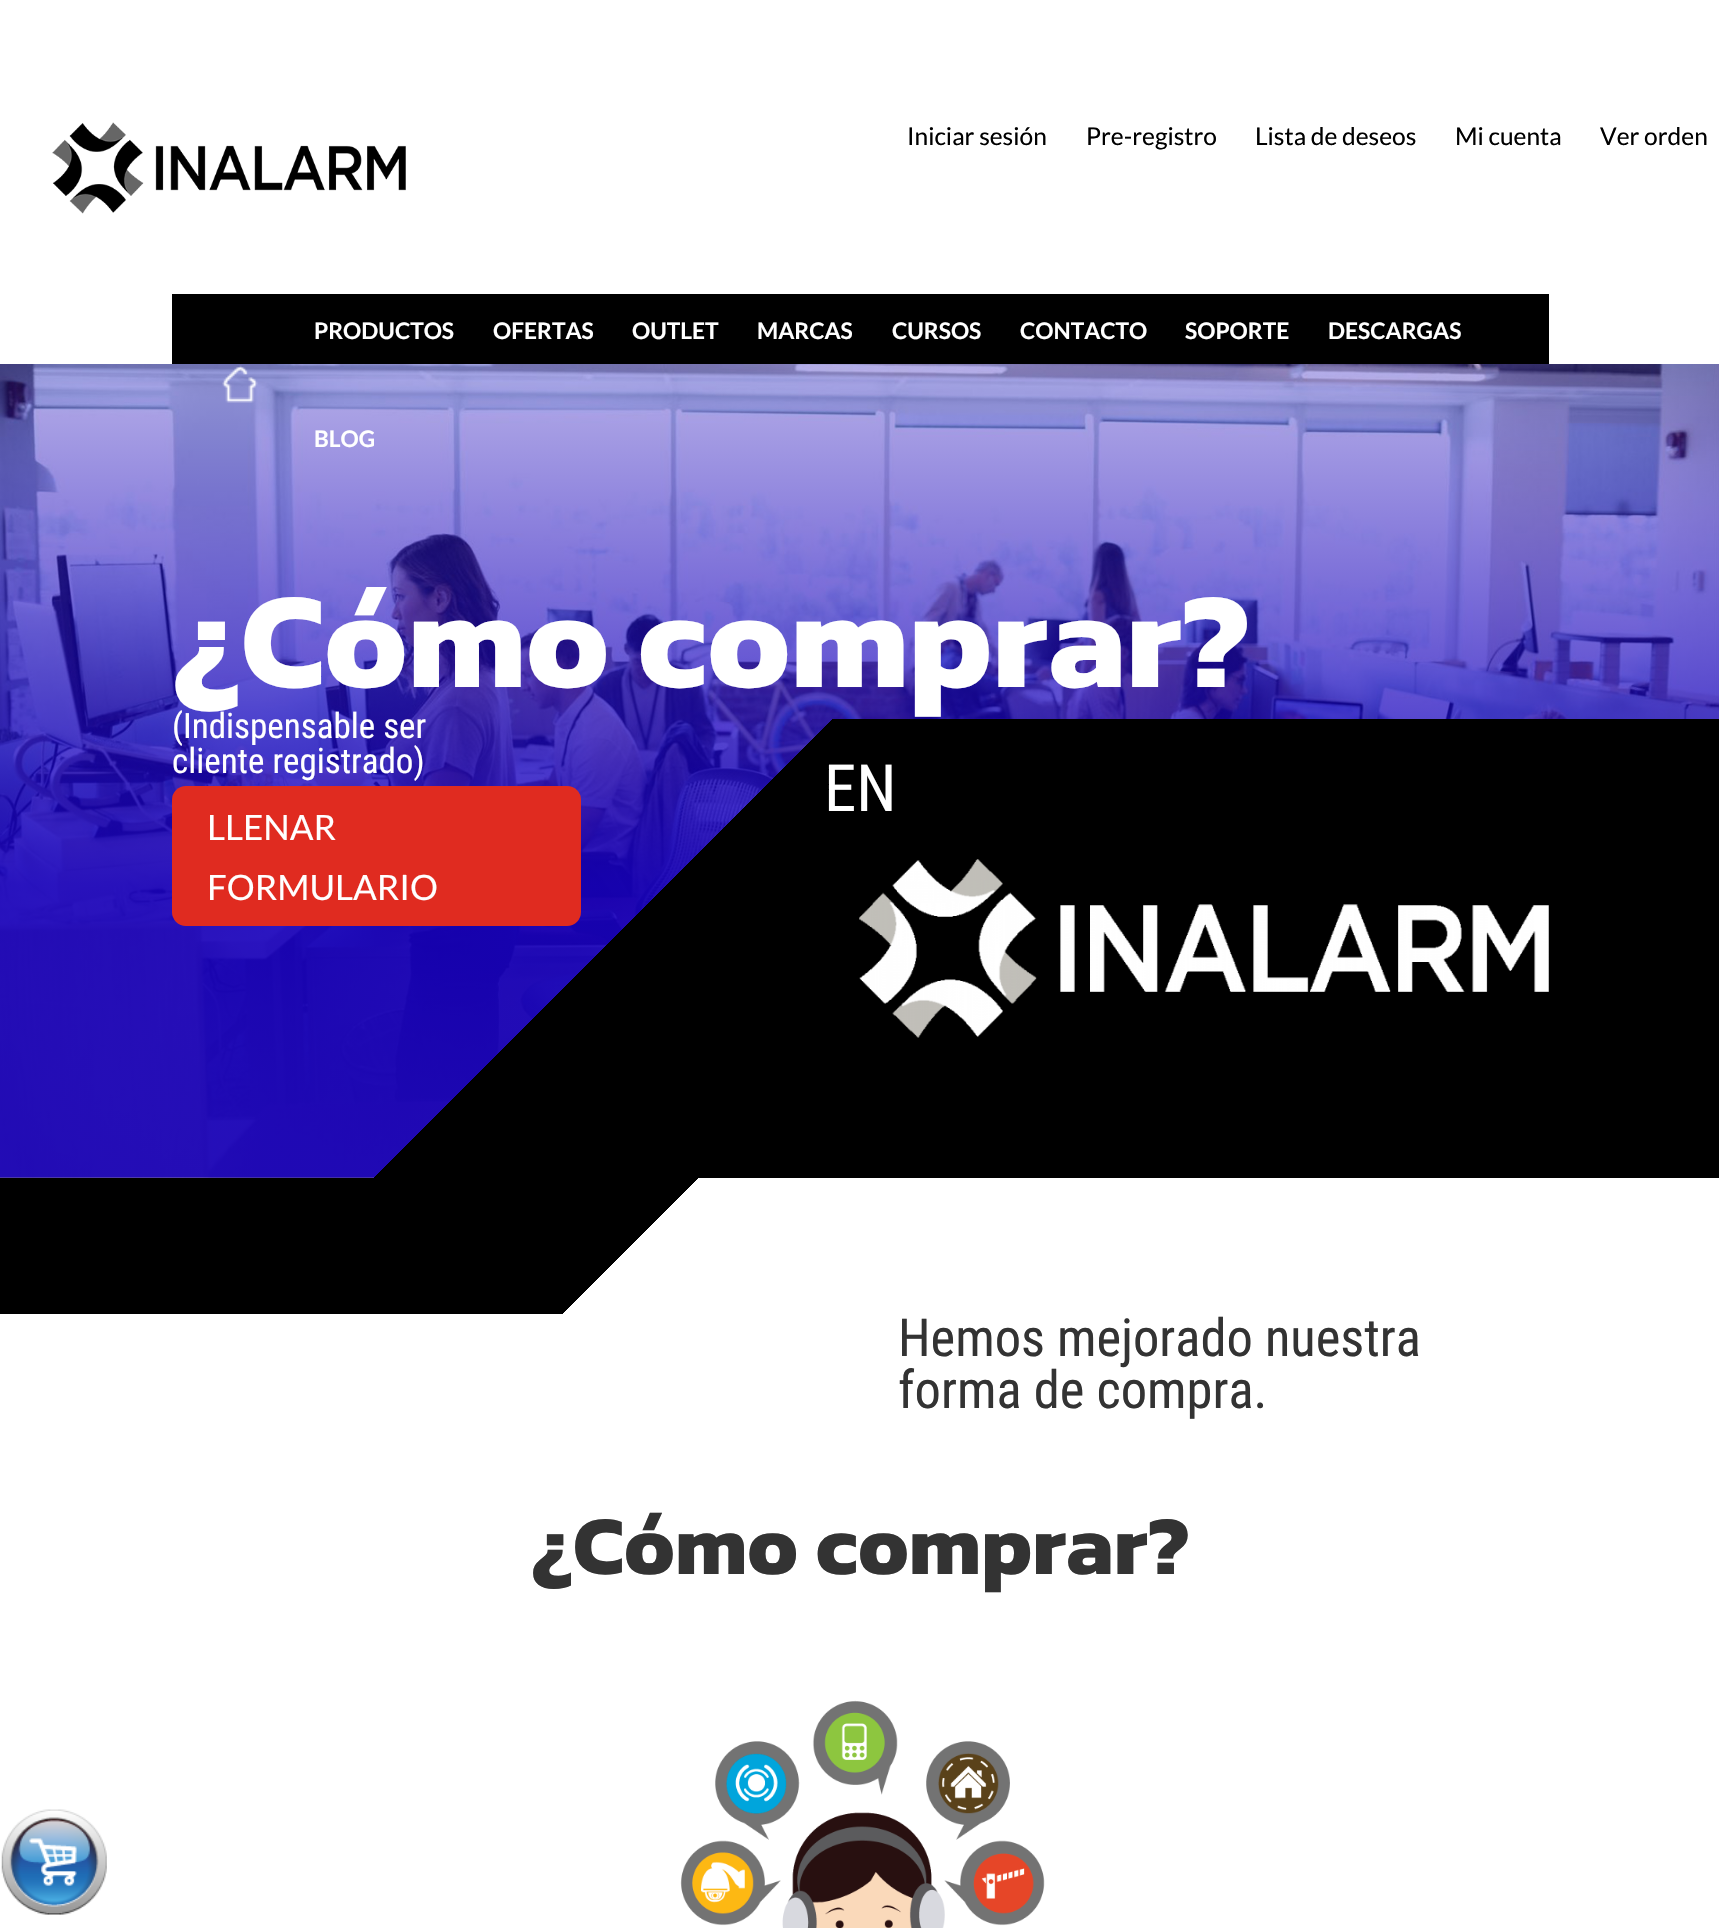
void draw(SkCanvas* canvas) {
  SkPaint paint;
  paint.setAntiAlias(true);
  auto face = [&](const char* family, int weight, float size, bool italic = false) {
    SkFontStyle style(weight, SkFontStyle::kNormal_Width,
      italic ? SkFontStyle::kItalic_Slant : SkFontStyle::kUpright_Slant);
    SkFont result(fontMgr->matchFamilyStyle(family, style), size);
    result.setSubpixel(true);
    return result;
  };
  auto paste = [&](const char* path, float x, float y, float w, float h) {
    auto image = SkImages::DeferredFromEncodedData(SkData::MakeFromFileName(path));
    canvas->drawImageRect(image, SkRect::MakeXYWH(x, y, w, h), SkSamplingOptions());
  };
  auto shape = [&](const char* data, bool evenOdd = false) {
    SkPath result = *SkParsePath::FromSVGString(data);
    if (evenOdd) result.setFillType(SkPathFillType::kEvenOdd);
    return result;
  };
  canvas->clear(0xffffffff);
  paste("img/1.png", 52, 122, 354, 92);
  paint.setColor(0xff000000);
  canvas->drawRect(SkRect::MakeXYWH(172, 294, 1377, 70), paint);
  paste("img/3.png", 0, 364, 1719, 814);
  paste("img/2.png", 222, 365, 36, 38);
  {
    const SkColor colors[] = {0xff000000, 0x00000000};
    const float stops[] = {0.64f, 0.64f};
    const SkPoint ends[] = {{1319, 1407}, {401, 490}};
    paint.setShader(SkGradientShader::MakeLinear(ends, colors, stops, 2, SkTileMode::kClamp));
    paint.setAlpha(255);
  }
  canvas->drawRect(SkRect::MakeXYWH(374, 719, 1175, 459), paint);
  paint.setShader(nullptr);
  paint.setColor(0xffe02b20);
  canvas->drawRoundRect(SkRect::MakeXYWH(172, 786, 409, 140), 14, 14, paint);
  paint.setColor(0xff000000);
  canvas->drawPath(shape("M688 719H1549V1178H688H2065V719Z"), paint);
  paste("img/4.png", 859, 859, 690, 179);
  {
    const SkColor colors[] = {0xff000000, 0xffffffff};
    const float stops[] = {0.32f, 0.32f};
    const SkPoint ends[] = {{314, 864}, {1406, 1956}};
    paint.setShader(SkGradientShader::MakeLinear(ends, colors, stops, 2, SkTileMode::kClamp));
    paint.setAlpha(255);
  }
  canvas->drawRect(SkRect::MakeXYWH(0, 1178, 698, 136), paint);
  paste("img/5.png", 680, 1700, 365, 228);
  paste("img/6.png", 1, 1809, 106, 106);
  auto f0 = face("Lato", 400, 24.5f);
  paint.setShader(nullptr);
  paint.setColor(0xff000000);
  {
    const struct { const char* s; float x, y; } items[] = {
      {"Iniciar sesión", 907, 145},
      {"Pre-registro", 1086, 145},
      {"Lista de deseos", 1255, 145},
      {"Mi cuenta", 1455, 145},
      {"Ver orden", 1600, 145},
    };
    for (auto [s, x, y] : items) {
      canvas->drawString(s, x, y, f0, paint);
    }
  }
  auto f1 = face("Lato", 700, 22.75f);
  paint.setColor(0xffffffff);
  {
    const struct { const char* s; float x, y; } items[] = {
      {"PRODUCTOS", 314, 339},
      {"OFERTAS", 493, 339},
      {"OUTLET", 632, 339},
      {"MARCAS", 757, 339},
      {"CURSOS", 892, 339},
      {"CONTACTO", 1020, 339},
      {"SOPORTE", 1185, 339},
      {"DESCARGAS", 1328, 339},
      {"BLOG", 314, 447},
    };
    for (auto [s, x, y] : items) {
      canvas->drawString(s, x, y, f1, paint);
    }
  }
  auto f2 = face("Kanit", 700, 137.5f);
  canvas->drawString("¿Cómo comprar?", 172, 687, f2, paint);
  auto f3 = face("Roboto Condensed", 400, 35);
  canvas->drawString("(Indispensable ser", 172, 738, f3, paint);
  canvas->drawString("cliente registrado)", 172, 773, f3, paint);
  auto f4 = face("Lato", 400, 35);
  canvas->drawString("LLENAR", 207, 840, f4, paint);
  canvas->drawString("FORMULARIO", 207, 900, f4, paint);
  auto f5 = face("Roboto Condensed", 400, 65);
  canvas->drawString("EN", 824, 811, f5, paint);
  auto f6 = face("Roboto Condensed", 400, 52.5f);
  paint.setColor(0xff333333);
  canvas->drawString("Hemos mejorado nuestra", 898, 1356, f6, paint);
  canvas->drawString("forma de compra.", 898, 1408, f6, paint);
  auto f7 = face("Kanit", 700, 84);
  canvas->drawString("¿Cómo comprar?", 531, 1574, f7, paint);
}
